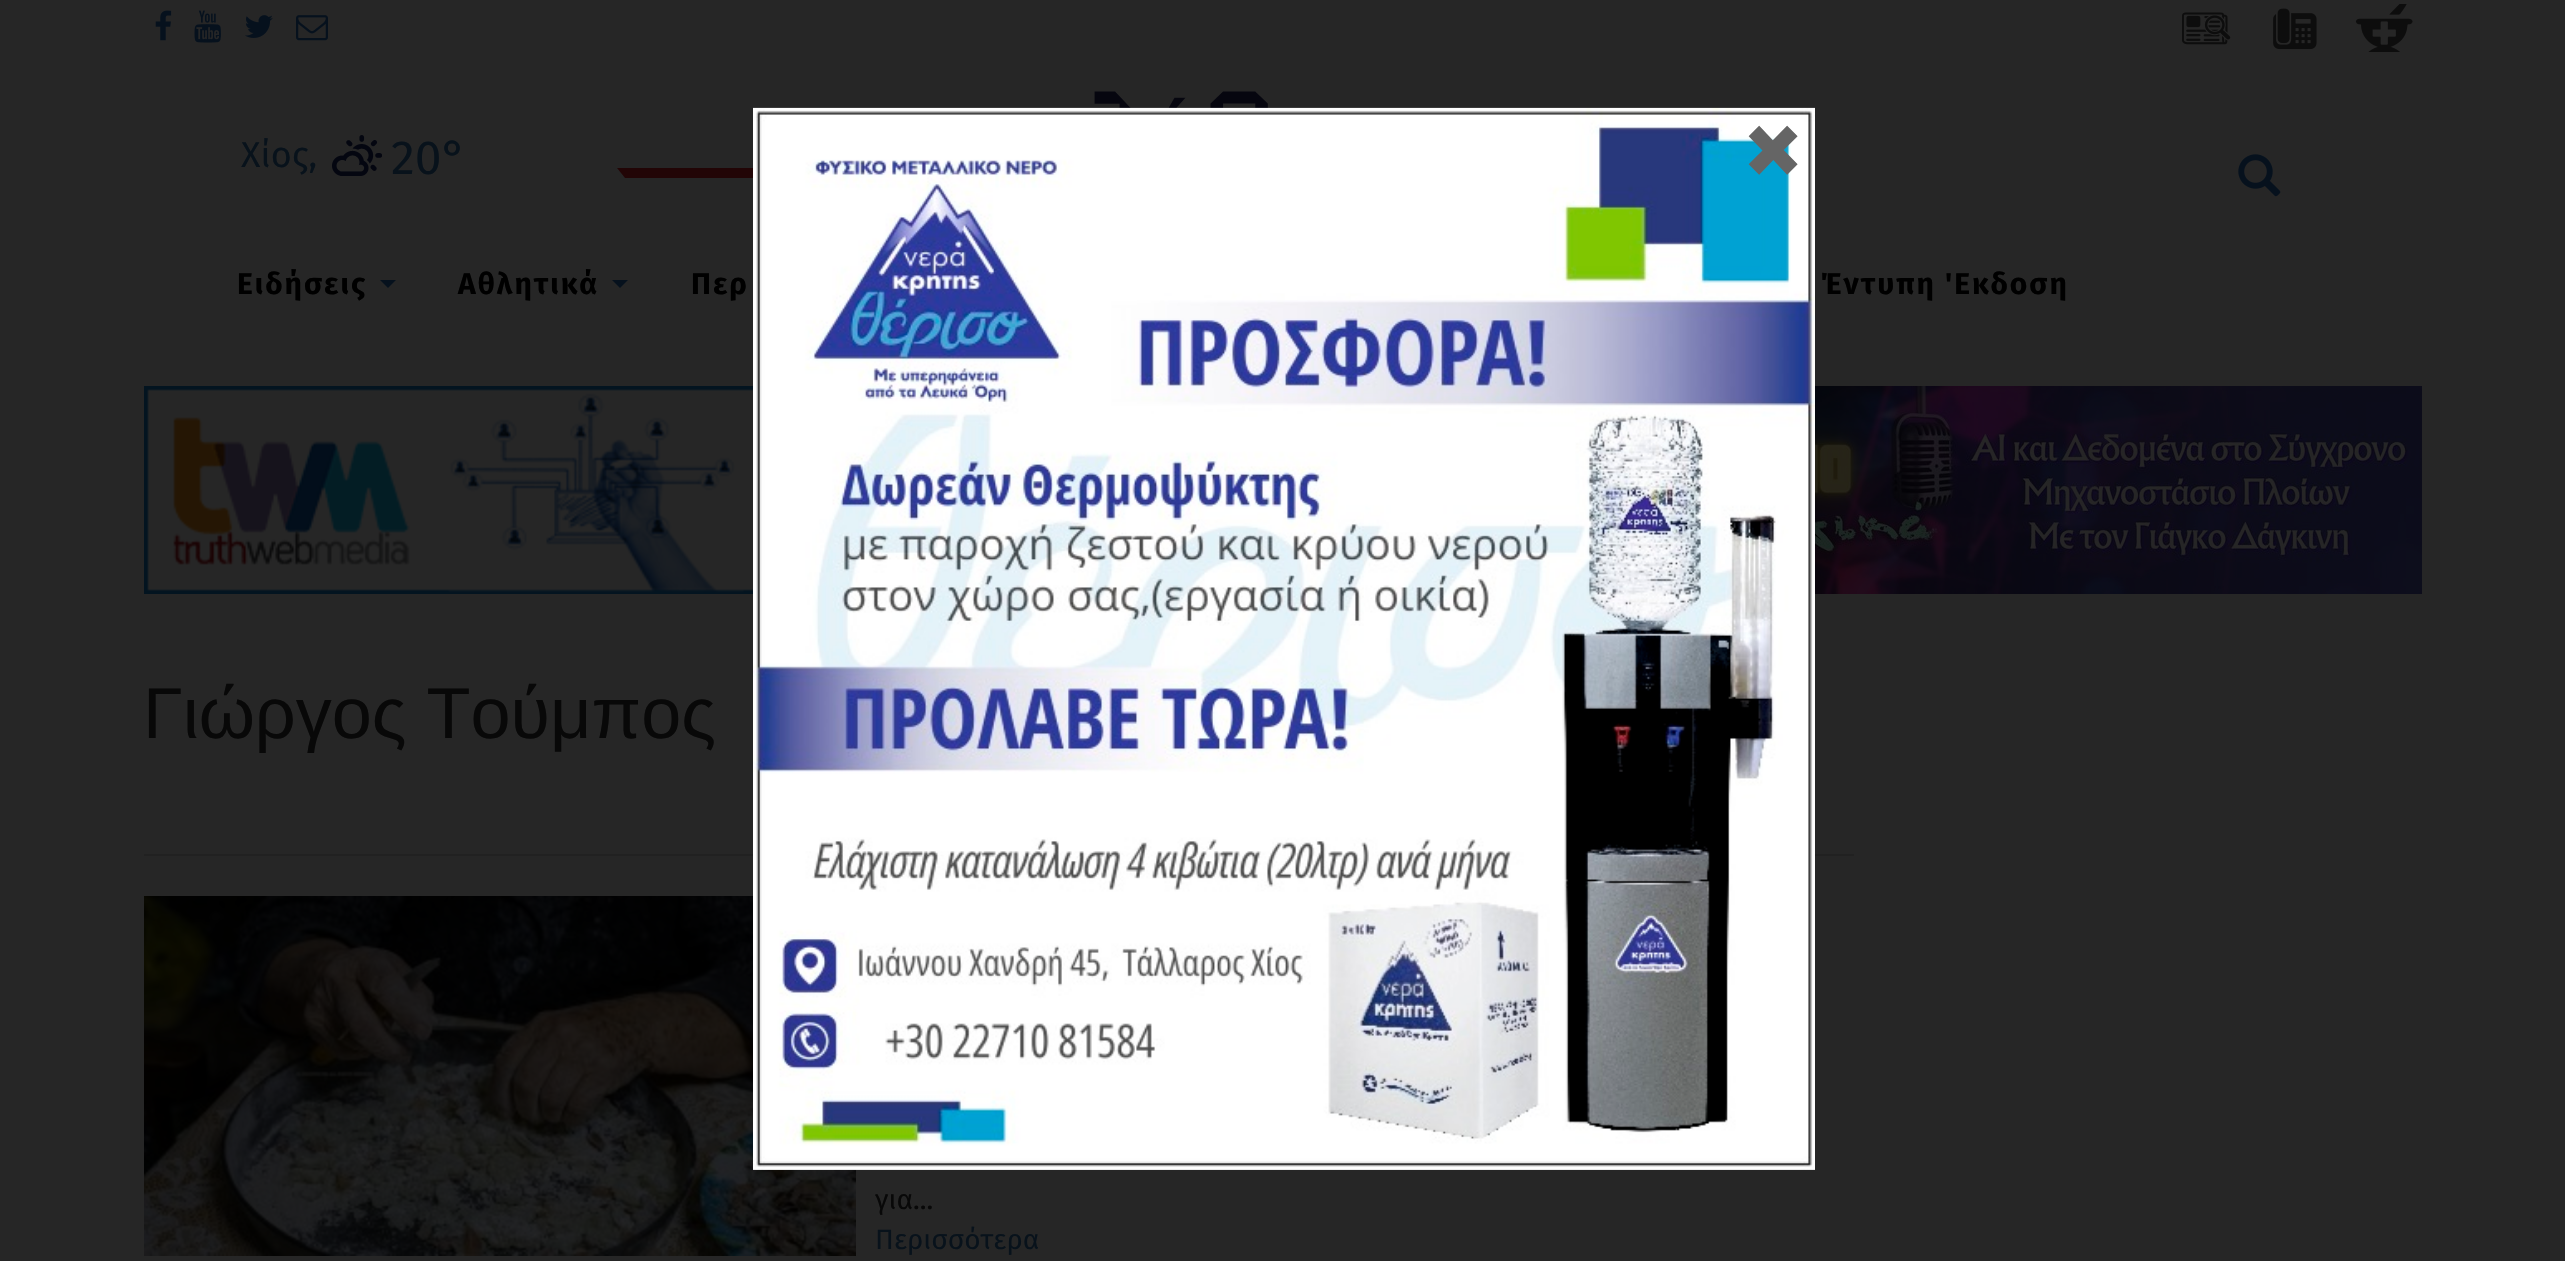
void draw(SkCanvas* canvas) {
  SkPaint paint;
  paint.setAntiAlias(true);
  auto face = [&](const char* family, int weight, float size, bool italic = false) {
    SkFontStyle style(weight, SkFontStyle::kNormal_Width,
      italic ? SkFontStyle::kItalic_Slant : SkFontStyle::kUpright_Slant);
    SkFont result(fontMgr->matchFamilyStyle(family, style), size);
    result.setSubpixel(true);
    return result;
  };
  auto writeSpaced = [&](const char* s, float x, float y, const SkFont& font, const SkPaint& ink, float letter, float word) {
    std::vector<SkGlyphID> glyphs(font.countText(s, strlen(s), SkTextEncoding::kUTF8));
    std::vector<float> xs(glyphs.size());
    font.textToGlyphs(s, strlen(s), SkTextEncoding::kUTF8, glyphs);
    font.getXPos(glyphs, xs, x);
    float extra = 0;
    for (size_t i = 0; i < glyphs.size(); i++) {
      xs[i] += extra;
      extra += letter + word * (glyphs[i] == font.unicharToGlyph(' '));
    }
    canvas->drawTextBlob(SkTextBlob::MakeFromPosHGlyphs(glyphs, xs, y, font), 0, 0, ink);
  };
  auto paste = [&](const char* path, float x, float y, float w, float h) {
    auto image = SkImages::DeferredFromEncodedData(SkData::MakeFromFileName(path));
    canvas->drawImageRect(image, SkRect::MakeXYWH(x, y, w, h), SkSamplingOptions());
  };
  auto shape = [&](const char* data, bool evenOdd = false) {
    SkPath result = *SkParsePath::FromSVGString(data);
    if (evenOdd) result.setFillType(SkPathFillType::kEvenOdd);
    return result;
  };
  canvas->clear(0xff262626);
  paste("img/1.png", 155, 10, 17, 31);
  paste("img/2.png", 194, 10, 27, 33);
  paste("img/3.png", 245, 15, 28, 23);
  paste("img/4.png", 296, 15, 32, 26);
  paste("img/5.png", 2182, 12, 49, 33);
  paste("img/6.png", 2273, 8, 44, 42);
  paste("img/7.png", 2355, 4, 58, 48);
  paint.setColor(0xff212121);
  canvas->drawRect(SkRect::MakeXYWH(144, 854, 1710, 2), paint);
  paste("img/9.png", 144, 896, 712, 360);
  paste("img/11.png", 1094, 91, 174, 17);
  paint.setColor(0xff220506);
  canvas->drawPath(shape("M931 168H617L625 178H931Z"), paint);
  paste("img/8.png", 753, 107, 1062, 1063);
  paste("img/10.png", 332, 135, 50, 41);
  paste("img/12.png", 2238, 154, 43, 43);
  paint.setColor(0xff06111d);
  canvas->drawPath(shape("M380 280H396L388 288Z"), paint);
  canvas->drawPath(shape("M612 280H628L620 288Z"), paint);
  paste("img/13.png", 144, 386, 609, 208);
  paste("img/14.png", 1815, 386, 607, 208);
  auto f0 = face("Arimo", 400, 72);
  paint.setColor(0xff080808);
  canvas->drawString("Γιώργος Τούμπος", 143, 738, f0, paint);
  auto f1 = face("Fira Sans", 700, 120);
  paint.setColor(0xff656565);
  canvas->drawString("×", 1742, 187, f1, paint);
  auto f2 = face("Fira Sans", 400, 28);
  paint.setColor(0xff080808);
  canvas->drawString("για...", 875, 1209, f2, paint);
  paint.setColor(0xff08121b);
  canvas->drawString("Περισσότερα", 875, 1249, f2, paint);
  auto f3 = face("Fira Sans", 400, 36);
  canvas->drawString("Χίος,", 241, 167, f3, paint);
  auto f4 = face("Fira Sans", 400, 48);
  canvas->drawString("20°", 391, 174, f4, paint);
  auto f5 = face("Fira Sans", 700, 30);
  paint.setColor(0xff000000);
  {
    const struct { const char* s; float x, y; } items[] = {
      {"Ειδήσεις", 237, 294},
      {"Αθλητικά", 458, 294},
      {"Περ", 691, 294},
      {"Έντυπη 'Εκδοση", 1820, 294},
    };
    for (auto [s, x, y] : items) {
      writeSpaced(s, x, y, f5, paint, 2, 0);
    }
  }
}
